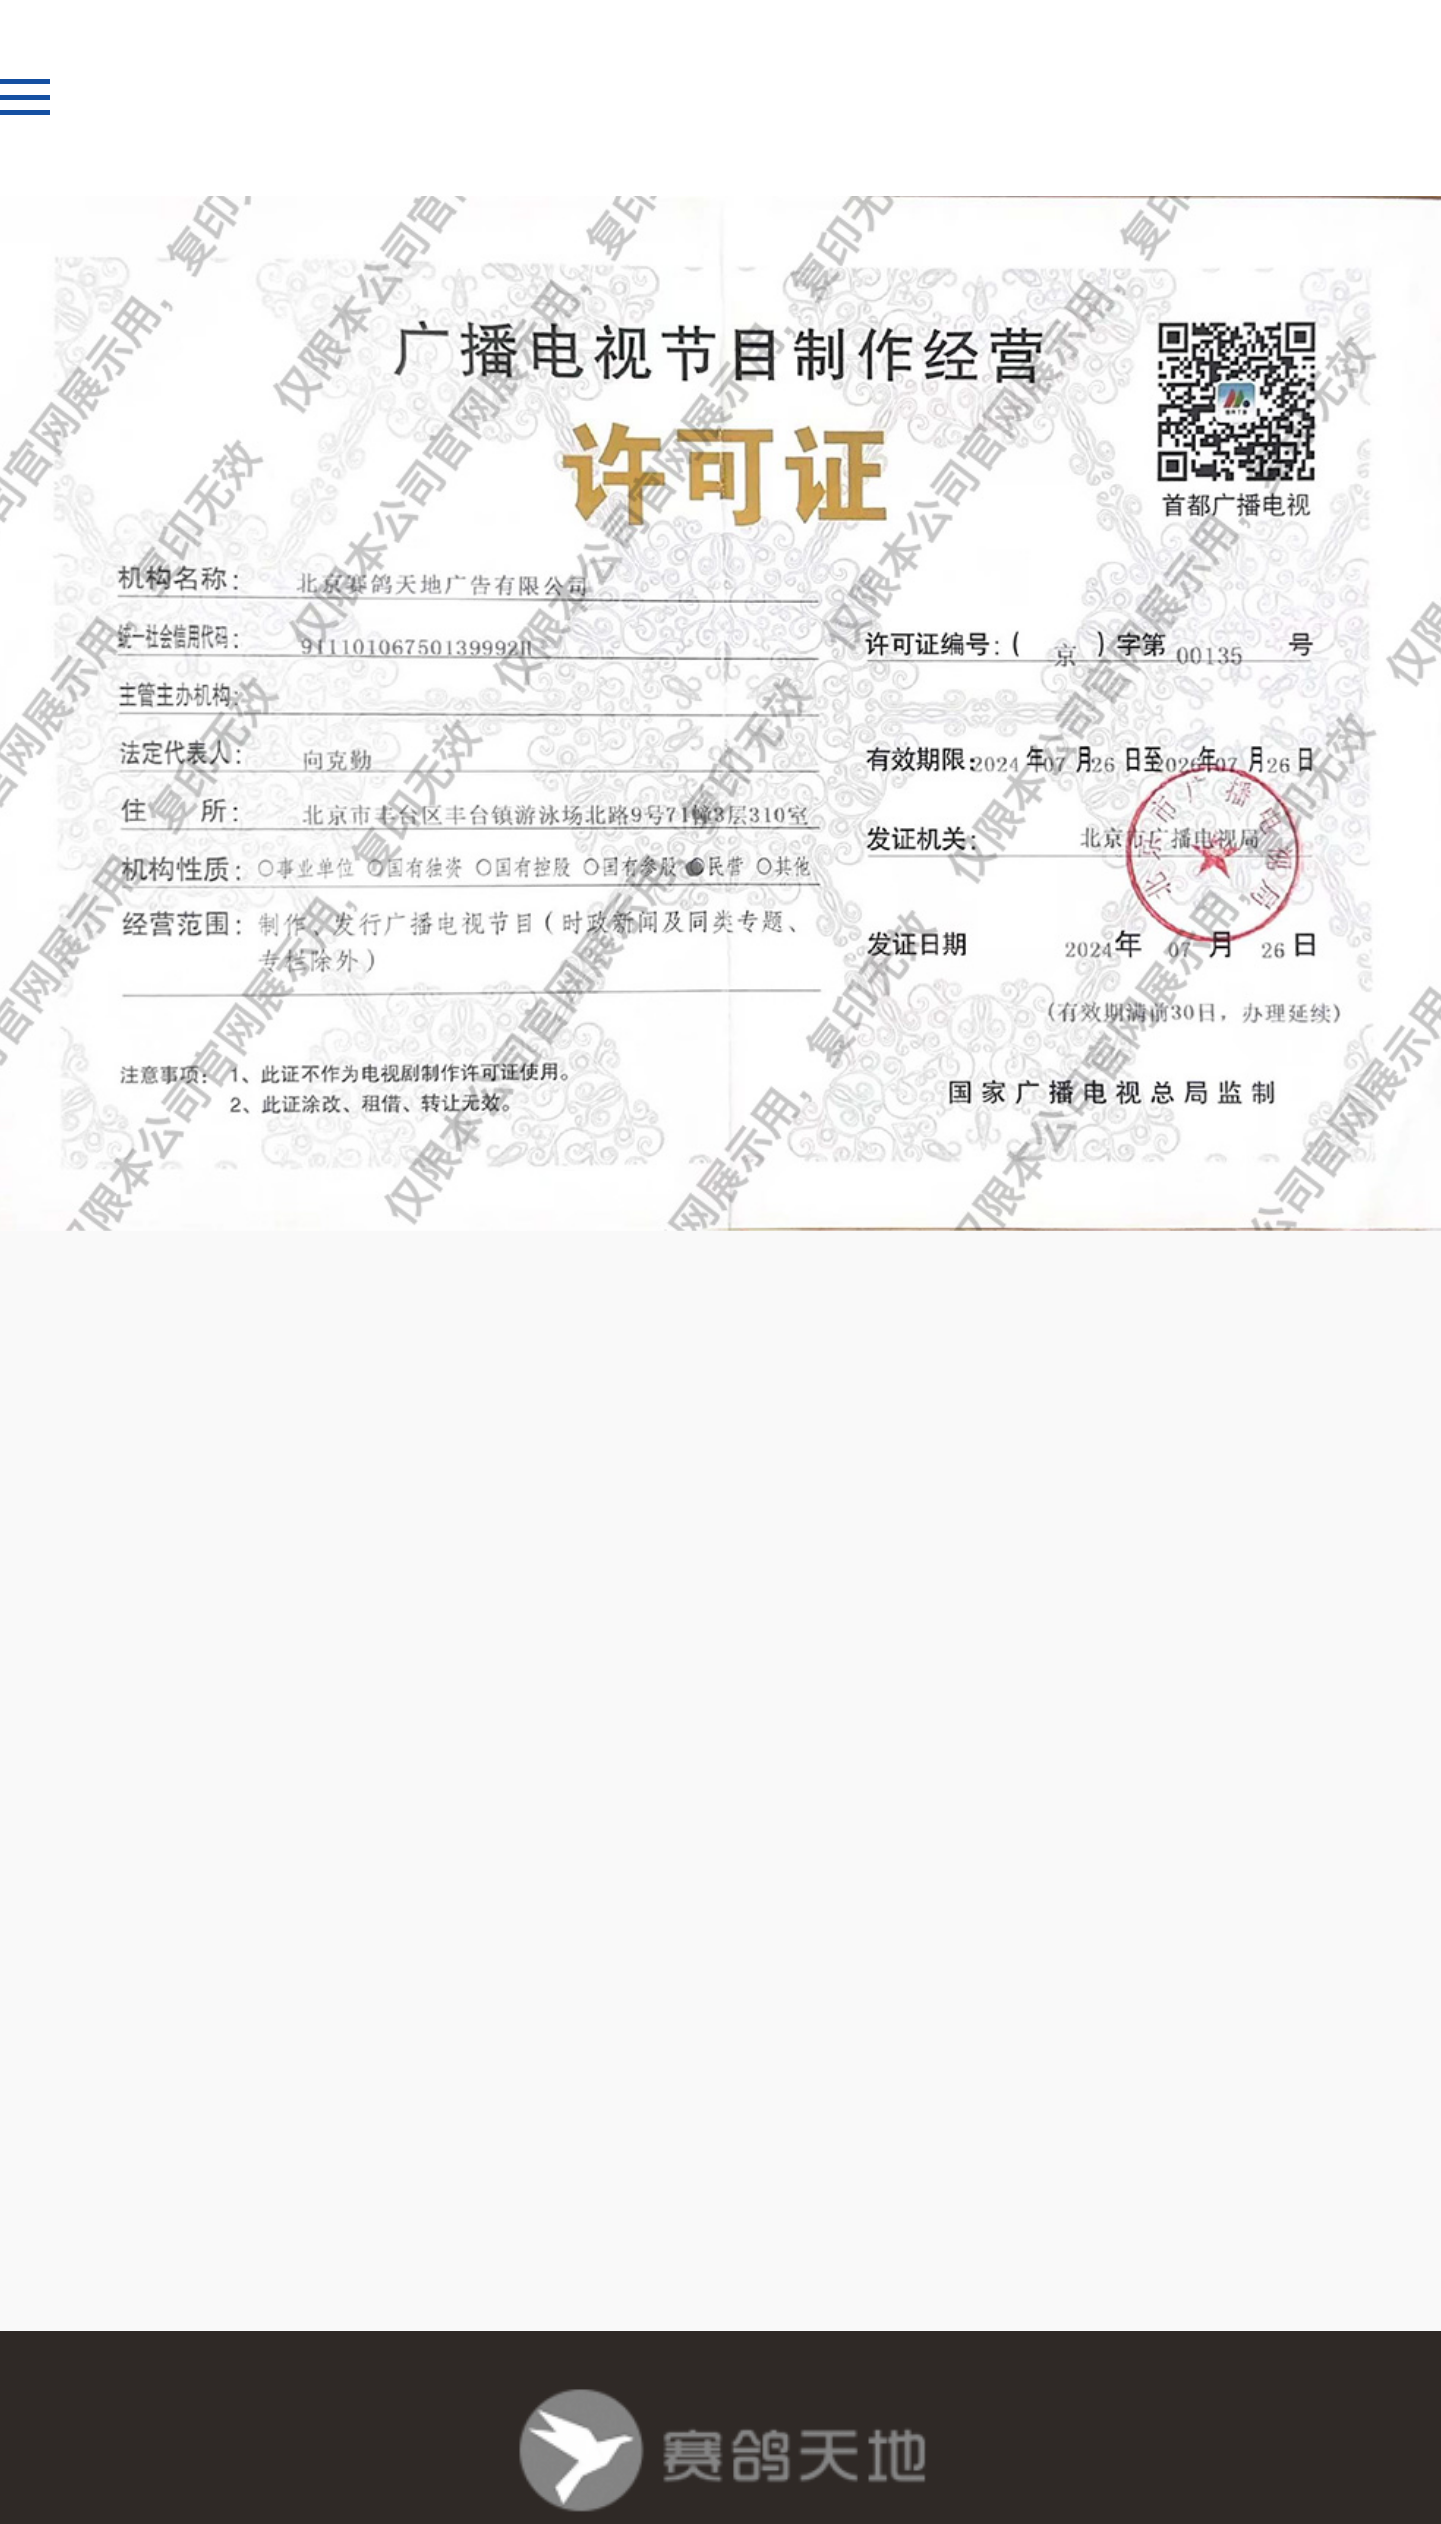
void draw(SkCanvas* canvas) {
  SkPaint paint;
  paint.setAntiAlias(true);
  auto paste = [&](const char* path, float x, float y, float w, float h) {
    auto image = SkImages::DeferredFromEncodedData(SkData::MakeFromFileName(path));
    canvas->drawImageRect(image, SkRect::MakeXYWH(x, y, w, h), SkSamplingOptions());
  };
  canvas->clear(0xff2f2926);
  {
    const struct { float x, y, w, h; SkColor color; } items[] = {
      {0, 0, 1441, 196, 0xffffffff},
      {0, 95, 50, 5, 0xff1550a2},
      {0, 79, 50, 5, 0xff1550a2},
      {0, 110, 50, 5, 0xff1550a2},
      {0, 1230, 1441, 1101, 0xfff9f9f9},
    };
    for (auto [x, y, w, h, color] : items) {
      paint.setColor(color);
      canvas->drawRect(SkRect::MakeXYWH(x, y, w, h), paint);
    }
  }
  paste("img/1.png", 0, 196, 1441, 1035);
  paste("img/2.png", 519, 2389, 407, 123);
}
